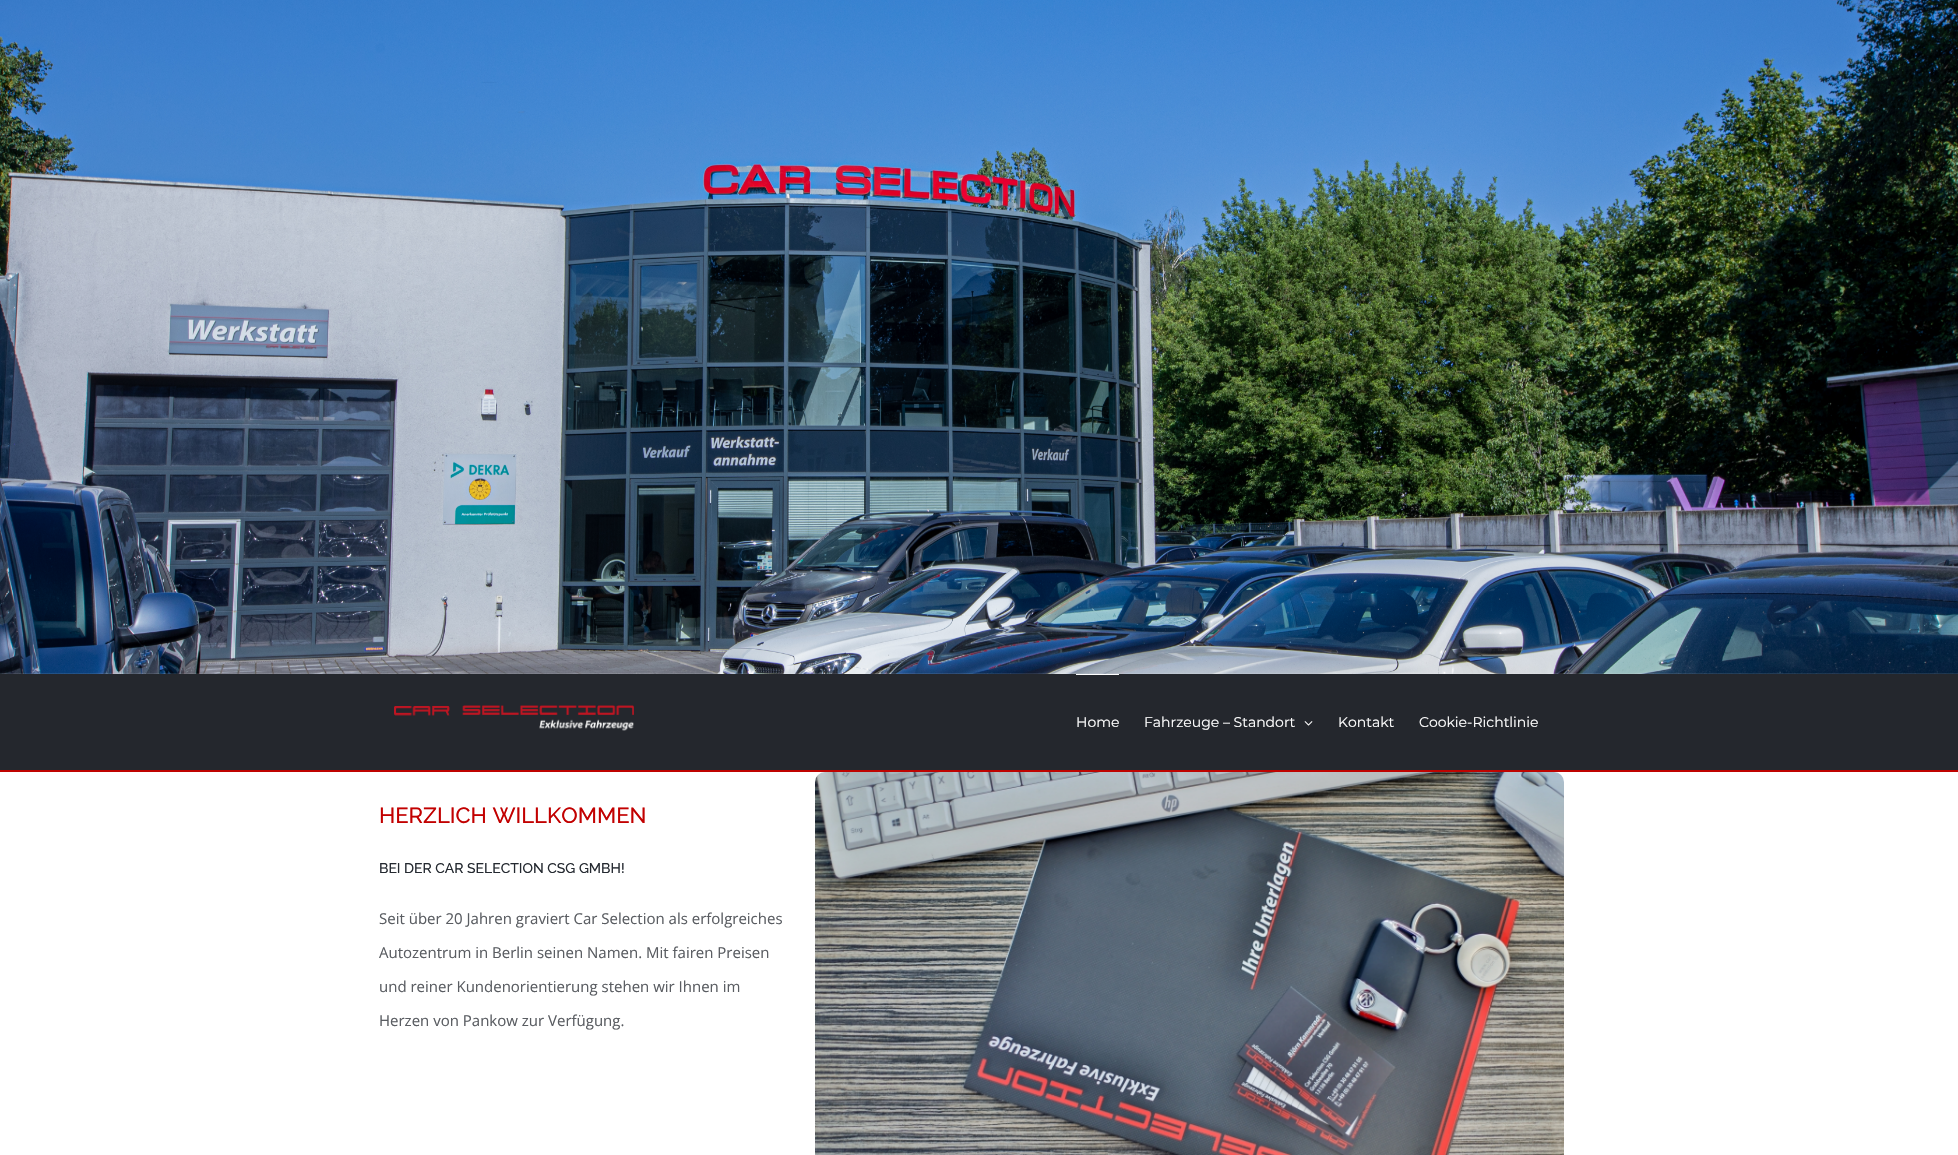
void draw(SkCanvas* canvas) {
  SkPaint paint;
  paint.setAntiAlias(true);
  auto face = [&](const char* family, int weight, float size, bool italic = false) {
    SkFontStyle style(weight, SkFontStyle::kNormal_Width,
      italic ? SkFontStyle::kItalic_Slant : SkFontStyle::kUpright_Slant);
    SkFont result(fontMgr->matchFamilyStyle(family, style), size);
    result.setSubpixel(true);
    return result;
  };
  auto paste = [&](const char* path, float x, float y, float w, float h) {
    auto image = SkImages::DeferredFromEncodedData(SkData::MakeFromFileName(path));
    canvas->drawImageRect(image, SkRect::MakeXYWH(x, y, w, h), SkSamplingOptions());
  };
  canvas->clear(0xffffffff);
  paste("img/1.png", 0, 0, 1958, 674);
  paint.setColor(0xff24272d);
  canvas->drawRect(SkRect::MakeXYWH(0, 674, 1958, 96), paint);
  paste("img/2.png", 394, 705, 240, 26);
  paint.setColor(0xffffffff);
  canvas->drawRect(SkRect::MakeXYWH(1076, 674, 43, 1), paint);
  paste("img/3.png", 1304, 721, 9, 5);
  paint.setColor(0xffbf0300);
  canvas->drawRect(SkRect::MakeXYWH(0, 770, 1958, 2), paint);
  paste("img/4.png", 815, 772, 749, 383);
  auto f0 = face("Montserrat", 100, 14);
  paint.setColor(0xffffffff);
  {
    const struct { const char* s; float x, y; } items[] = {
      {"Home", 1076, 727},
      {"Fahrzeuge – Standort", 1144, 727},
      {"Kontakt", 1338, 727},
      {"Cookie-Richtlinie", 1419, 727},
    };
    for (auto [s, x, y] : items) {
      canvas->drawString(s, x, y, f0, paint);
    }
  }
  auto f1 = face("Raleway", 100, 22);
  paint.setColor(0xffc20000);
  canvas->drawString("HERZLICH WILLKOMMEN", 379, 823, f1, paint);
  auto f2 = face("Raleway", 100, 14);
  paint.setColor(0xff242930);
  canvas->drawString("BEI DER CAR SELECTION CSG GMBH!", 379, 873, f2, paint);
  auto f3 = face("Open Sans", 400, 15);
  paint.setColor(0xff5a5d62);
  {
    const struct { const char* s; float x, y; } items[] = {
      {"Seit über 20 Jahren graviert Car Selection als erfolgreiches", 379, 924},
      {"Autozentrum in Berlin seinen Namen. Mit fairen Preisen", 379, 958},
      {"und reiner Kundenorientierung stehen wir Ihnen im", 379, 992},
      {"Herzen von Pankow zur Verfügung.", 379, 1026},
    };
    for (auto [s, x, y] : items) {
      canvas->drawString(s, x, y, f3, paint);
    }
  }
}
